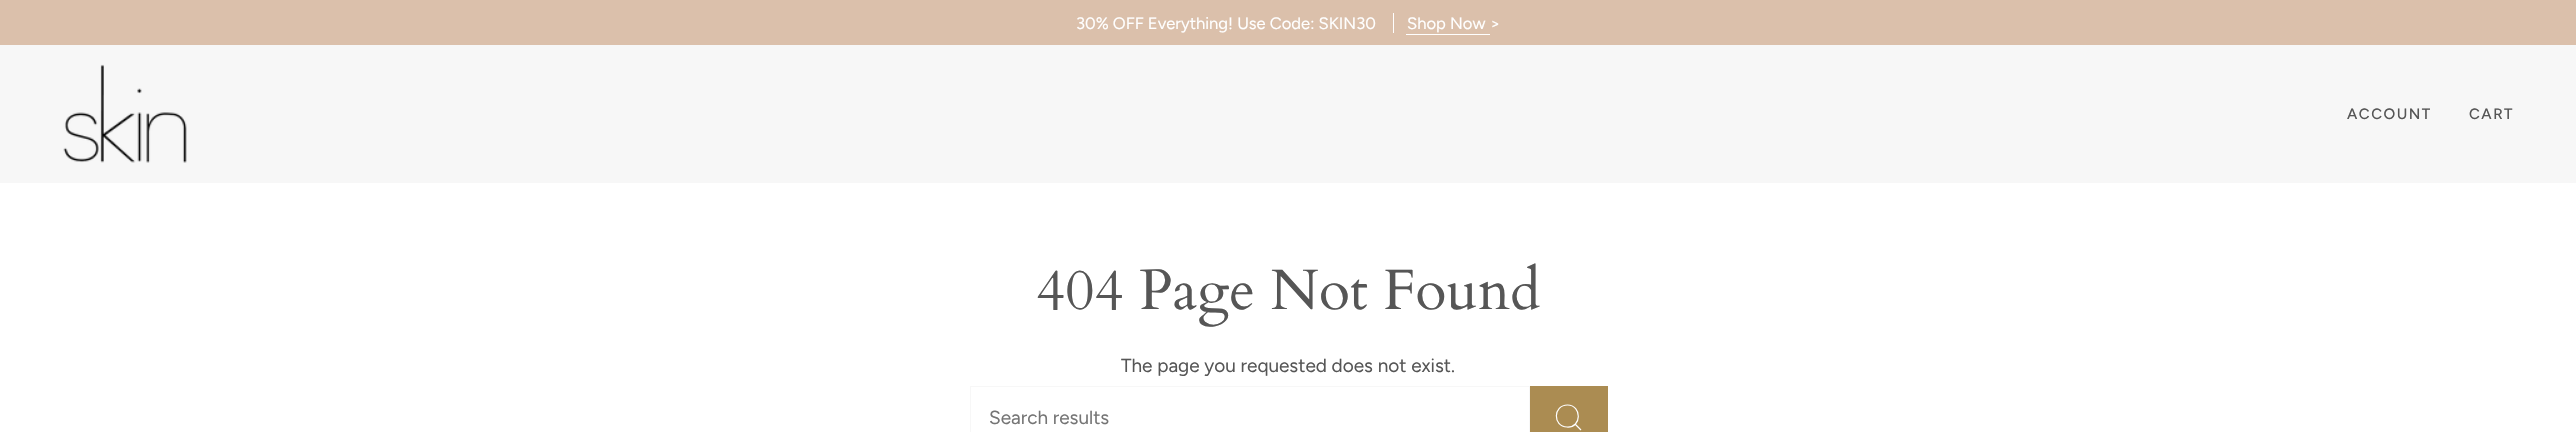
void draw(SkCanvas* canvas) {
  SkPaint paint;
  paint.setAntiAlias(true);
  auto face = [&](const char* family, int weight, float size, bool italic = false) {
    SkFontStyle style(weight, SkFontStyle::kNormal_Width,
      italic ? SkFontStyle::kItalic_Slant : SkFontStyle::kUpright_Slant);
    SkFont result(fontMgr->matchFamilyStyle(family, style), size);
    result.setSubpixel(true);
    return result;
  };
  auto writeSpaced = [&](const char* s, float x, float y, const SkFont& font, const SkPaint& ink, float letter, float word) {
    std::vector<SkGlyphID> glyphs(font.countText(s, strlen(s), SkTextEncoding::kUTF8));
    std::vector<float> xs(glyphs.size());
    font.textToGlyphs(s, strlen(s), SkTextEncoding::kUTF8, glyphs);
    font.getXPos(glyphs, xs, x);
    float extra = 0;
    for (size_t i = 0; i < glyphs.size(); i++) {
      xs[i] += extra;
      extra += letter + word * (glyphs[i] == font.unicharToGlyph(' '));
    }
    canvas->drawTextBlob(SkTextBlob::MakeFromPosHGlyphs(glyphs, xs, y, font), 0, 0, ink);
  };
  auto paste = [&](const char* path, float x, float y, float w, float h) {
    auto image = SkImages::DeferredFromEncodedData(SkData::MakeFromFileName(path));
    canvas->drawImageRect(image, SkRect::MakeXYWH(x, y, w, h), SkSamplingOptions());
  };
  auto shape = [&](const char* data, bool evenOdd = false) {
    SkPath result = *SkParsePath::FromSVGString(data);
    if (evenOdd) result.setFillType(SkPathFillType::kEvenOdd);
    return result;
  };
  canvas->clear(0xffffffff);
  {
    const struct { float x, y, w, h; SkColor color; } items[] = {
      {0, 0, 2576, 45, 0xffdbc0ab},
      {1393, 13, 1, 20, 0xffffffff},
      {1406, 34, 84, 1, 0xffffffff},
      {0, 45, 2576, 138, 0xfff7f7f7},
    };
    for (auto [x, y, w, h, color] : items) {
      paint.setColor(color);
      canvas->drawRect(SkRect::MakeXYWH(x, y, w, h), paint);
    }
  }
  paste("img/1.png", 63, 64, 124, 99);
  paint.setStroke(true);
  paint.setStrokeWidth(1);
  canvas->drawRect(SkRect::MakeXYWH(970.5f, 386.5f, 559, 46), paint);
  paint.setStroke(false);
  paint.setColor(0xffab8c52);
  canvas->drawRect(SkRect::MakeXYWH(1530, 386, 78, 46), paint);
  paint.setStroke(true);
  paint.setStrokeWidth(1.2f);
  paint.setColor(0xffffffff);
  canvas->drawPath(shape("M1567.5 405C1582 405 1582 428 1567 427C1552.5 426.5 1553 405 1567.5 405ZM1575 424L1581 430"), paint);
  auto f0 = face("Figtree", 400, 16.6f);
  paint.setStroke(false);
  {
    const struct { const char* s; float x, y; } items[] = {
      {"30% OFF Everything! Use Code: SKIN30", 1076, 29},
      {"Shop Now", 1407, 29},
      {">", 1490, 29},
    };
    for (auto [s, x, y] : items) {
      canvas->drawString(s, x, y, f0, paint);
    }
  }
  auto f1 = face("Figtree", 500, 15);
  paint.setColor(0xff565656);
  writeSpaced("ACCOUNT", 2347, 119, f1, paint, 1.5f, 0);
  writeSpaced("CART", 2469, 119, f1, paint, 1.5f, 0);
  auto f2 = face("Cardo", 400, 57);
  canvas->drawString("404 Page Not Found", 1036, 309, f2, paint);
  auto f3 = face("Figtree", 400, 19);
  canvas->drawString("The page you requested does not exist.", 1121, 372, f3, paint);
  paint.setColor(0xff757575);
  canvas->drawString("Search results", 989, 424, f3, paint);
}
